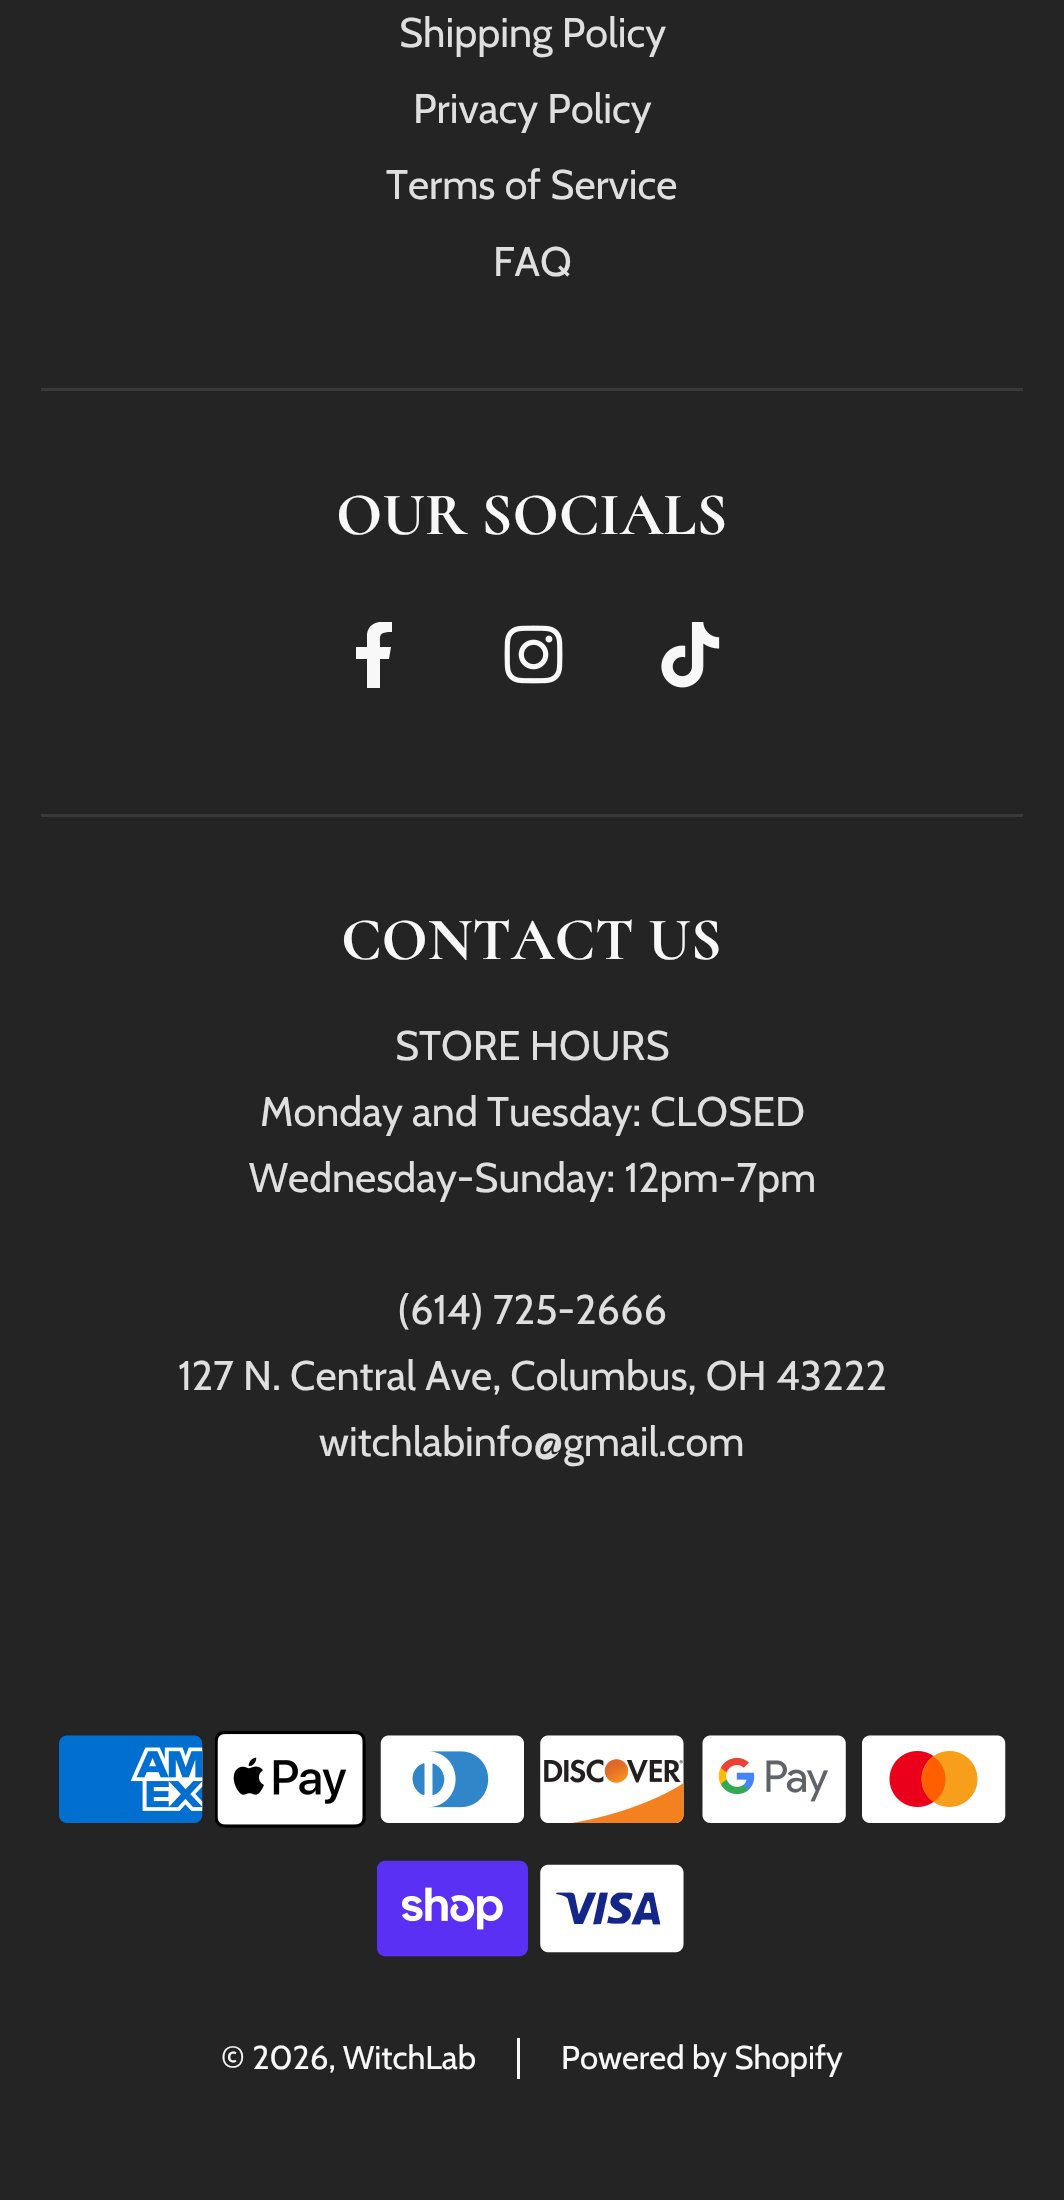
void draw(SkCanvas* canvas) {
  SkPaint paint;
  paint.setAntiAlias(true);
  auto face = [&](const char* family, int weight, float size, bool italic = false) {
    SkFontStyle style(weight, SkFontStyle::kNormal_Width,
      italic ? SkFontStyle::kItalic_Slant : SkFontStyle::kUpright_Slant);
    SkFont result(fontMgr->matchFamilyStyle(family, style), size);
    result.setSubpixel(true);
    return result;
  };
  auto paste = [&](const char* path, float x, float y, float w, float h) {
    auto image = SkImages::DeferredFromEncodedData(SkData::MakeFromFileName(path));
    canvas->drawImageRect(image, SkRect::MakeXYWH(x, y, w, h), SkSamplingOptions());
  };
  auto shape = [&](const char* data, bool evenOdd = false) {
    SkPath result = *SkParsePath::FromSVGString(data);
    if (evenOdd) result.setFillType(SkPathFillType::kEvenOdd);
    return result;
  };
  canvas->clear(0xff242424);
  paint.setColor(0xff393939);
  canvas->drawRect(SkRect::MakeXYWH(41, 388, 982, 3), paint);
  canvas->save();
  canvas->clipRect(SkRect::MakeXYWH(333, 622, 82, 66));
  paint.setColor(0xfff8f8f8);
  canvas->drawPath(shape("M389 659L391 647H380C380 635 378 632 392 632V622C381 621 369 621 367 634V647H356V659H367V688H380V659Z"), paint);
  canvas->restore();
  paste("img/1.png", 504, 625, 59, 59);
  paste("img/2.png", 661, 622, 59, 66);
  paint.setColor(0xff393939);
  canvas->drawRect(SkRect::MakeXYWH(41, 814, 982, 3), paint);
  paste("img/3.png", 59, 1735, 144, 88);
  paste("img/4.png", 215, 1730, 151, 98);
  paste("img/5.png", 380, 1735, 144, 88);
  paste("img/6.png", 540, 1735, 144, 88);
  paste("img/7.png", 702, 1735, 144, 88);
  paste("img/8.png", 862, 1735, 144, 88);
  paste("img/9.png", 377, 1860, 151, 97);
  paste("img/10.png", 540, 1864, 144, 89);
  paint.setColor(0xfff8f8f8);
  canvas->drawRect(SkRect::MakeXYWH(517, 2038, 3, 41), paint);
  auto f0 = face("Cabin", 400, 41.25f);
  paint.setColor(0xffdfdfdf);
  {
    const struct { const char* s; float x, y; } items[] = {
      {"Shipping Policy", 399, 47},
      {"Privacy Policy", 413, 123},
      {"Terms of Service", 386, 199},
      {"FAQ", 493, 276},
    };
    for (auto [s, x, y] : items) {
      canvas->drawString(s, x, y, f0, paint);
    }
  }
  auto f1 = face("Cormorant", 700, 60.5f);
  paint.setColor(0xfff8f8f8);
  canvas->drawString("OUR SOCIALS", 336, 534, f1, paint);
  canvas->drawString("CONTACT US", 341, 959, f1, paint);
  paint.setColor(0xffdfdfdf);
  {
    const struct { const char* s; float x, y; } items[] = {
      {"STORE HOURS", 395, 1060},
      {"Monday and Tuesday: CLOSED", 260, 1126},
      {"Wednesday-Sunday: 12pm-7pm", 249, 1192},
      {"(614) 725-2666", 397, 1324},
      {"127 N. Central Ave, Columbus, OH 43222", 178, 1390},
      {"witchlabinfo@gmail.com", 319, 1456},
    };
    for (auto [s, x, y] : items) {
      canvas->drawString(s, x, y, f0, paint);
    }
  }
  auto f2 = face("Cabin", 400, 33);
  paint.setColor(0xfff8f8f8);
  canvas->drawString("© 2026, WitchLab", 221, 2069, f2, paint);
  canvas->drawString("Powered by Shopify", 561, 2069, f2, paint);
}
